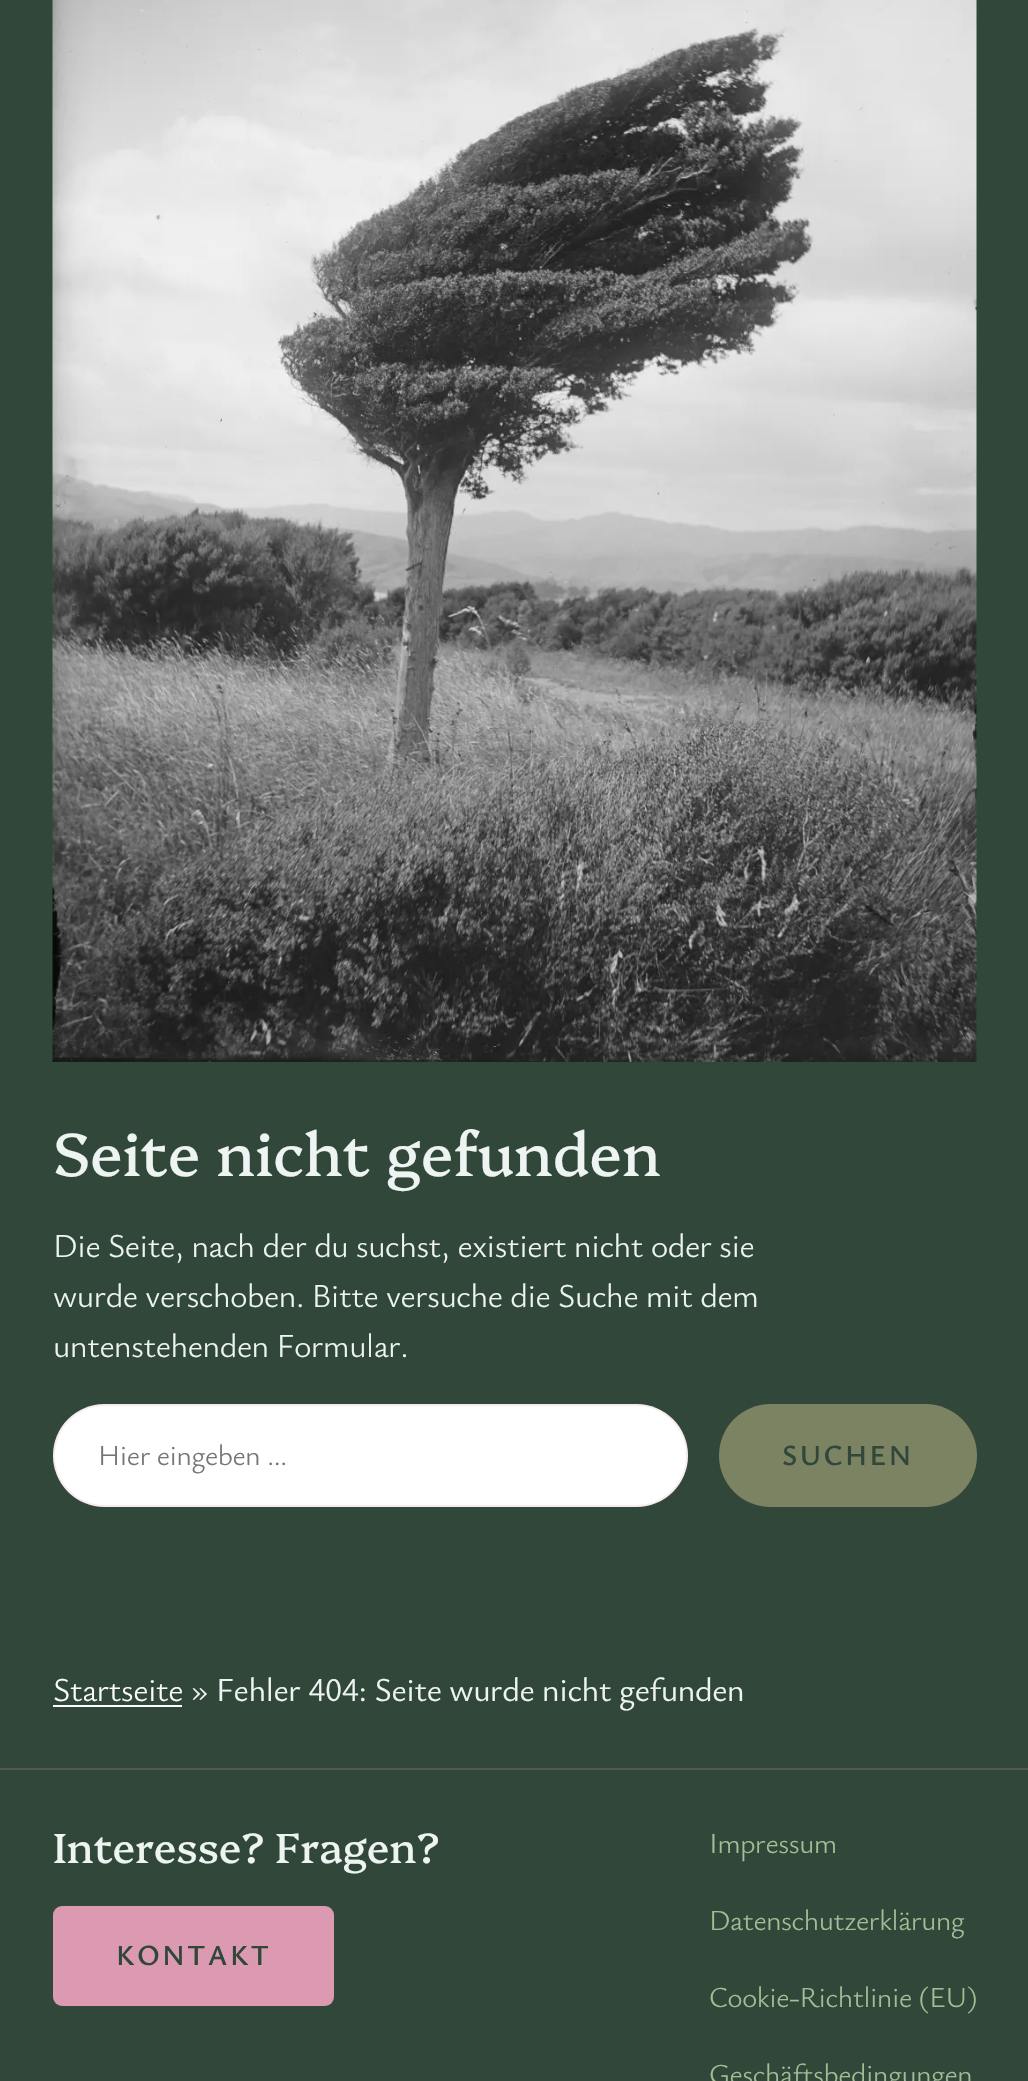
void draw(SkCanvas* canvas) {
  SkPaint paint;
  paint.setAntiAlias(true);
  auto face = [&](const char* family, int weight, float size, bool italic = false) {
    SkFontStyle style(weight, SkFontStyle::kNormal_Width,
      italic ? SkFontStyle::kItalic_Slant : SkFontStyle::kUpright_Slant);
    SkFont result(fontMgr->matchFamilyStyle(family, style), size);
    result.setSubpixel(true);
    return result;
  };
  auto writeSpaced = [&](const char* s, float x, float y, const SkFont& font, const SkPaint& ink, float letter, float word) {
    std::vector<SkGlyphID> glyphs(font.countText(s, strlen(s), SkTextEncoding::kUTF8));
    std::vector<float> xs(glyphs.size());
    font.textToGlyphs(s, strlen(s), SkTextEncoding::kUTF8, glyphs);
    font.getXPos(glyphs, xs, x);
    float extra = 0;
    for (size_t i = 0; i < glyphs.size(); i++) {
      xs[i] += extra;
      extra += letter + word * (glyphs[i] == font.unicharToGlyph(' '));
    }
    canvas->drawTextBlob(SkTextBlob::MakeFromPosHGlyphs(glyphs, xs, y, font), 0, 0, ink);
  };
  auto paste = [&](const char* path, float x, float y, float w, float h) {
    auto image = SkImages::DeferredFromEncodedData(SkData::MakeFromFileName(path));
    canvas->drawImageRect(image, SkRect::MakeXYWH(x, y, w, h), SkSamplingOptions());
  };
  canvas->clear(0xff31473a);
  paste("img/1.png", 52, 0, 925, 1062);
  paint.setColor(0xffffffff);
  canvas->drawRoundRect(SkRect::MakeXYWH(53, 1404, 635, 103), 51.5f, 51.5f, paint);
  paint.setStroke(true);
  paint.setStrokeWidth(2);
  paint.setColor(0x33db9ab1);
  canvas->drawRoundRect(SkRect::MakeXYWH(54, 1405, 633, 101), 50.5f, 50.5f, paint);
  paint.setStroke(false);
  paint.setColor(0xff7c8363);
  canvas->drawRoundRect(SkRect::MakeXYWH(719, 1404, 258, 103), 51.5f, 51.5f, paint);
  paint.setColor(0xffffffff);
  canvas->drawRect(SkRect::MakeXYWH(53, 1705, 129, 2), paint);
  paint.setColor(0xff535852);
  canvas->drawRect(SkRect::MakeXYWH(0, 1768, 1028, 2), paint);
  paint.setColor(0xffdb9ab1);
  canvas->drawRoundRect(SkRect::MakeXYWH(53, 1906, 281, 100), 9, 9, paint);
  auto f0 = face("Platypi", 400, 60.5f);
  paint.setColor(0xffedf4f2);
  writeSpaced("Seite nicht gefunden", 53, 1176, f0, paint, -0.2f, 0);
  auto f1 = face("Ysabeau Office", 300, 33.3f);
  {
    const struct { const char* s; float x, y; } items[] = {
      {"Die Seite, nach der du suchst, existiert nicht oder sie", 53, 1257},
      {"wurde verschoben. Bitte versuche die Suche mit dem", 53, 1307},
      {"untenstehenden Formular.", 53, 1357},
    };
    for (auto [s, x, y] : items) {
      writeSpaced(s, x, y, f1, paint, -0.4f, 0);
    }
  }
  auto f2 = face("Ysabeau Office", 300, 29);
  paint.setColor(0xff757575);
  writeSpaced("Hier eingeben …", 98, 1465, f2, paint, -0.4f, 0);
  auto f3 = face("Ysabeau Office", 600, 29);
  paint.setColor(0xff31473a);
  writeSpaced("SUCHEN", 782, 1465, f3, paint, 2.5f, 0);
  paint.setColor(0xffffffff);
  writeSpaced("Startseite", 53, 1701, f1, paint, -0.4f, 0);
  paint.setColor(0xffedf4f2);
  writeSpaced("»", 191, 1701, f1, paint, -0.4f, 0);
  auto f4 = face("Ysabeau Office", 400, 33.3f);
  writeSpaced("Fehler 404: Seite wurde nicht gefunden", 216, 1701, f4, paint, -0.4f, 0);
  auto f5 = face("Platypi", 400, 42.1f);
  writeSpaced("Interesse? Fragen?", 53, 1863, f5, paint, -0.2f, 0);
  paint.setColor(0xff31473a);
  writeSpaced("KONTAKT", 116, 1965, f3, paint, 2.5f, 0);
  paint.setColor(0xffa1be95);
  {
    const struct { const char* s; float x, y; } items[] = {
      {"Impressum", 709, 1853},
      {"Datenschutzerklärung", 709, 1930},
      {"Cookie-Richtlinie (EU)", 709, 2007},
      {"Geschäftsbedingungen", 709, 2084},
    };
    for (auto [s, x, y] : items) {
      writeSpaced(s, x, y, f2, paint, -0.4f, 0);
    }
  }
}
